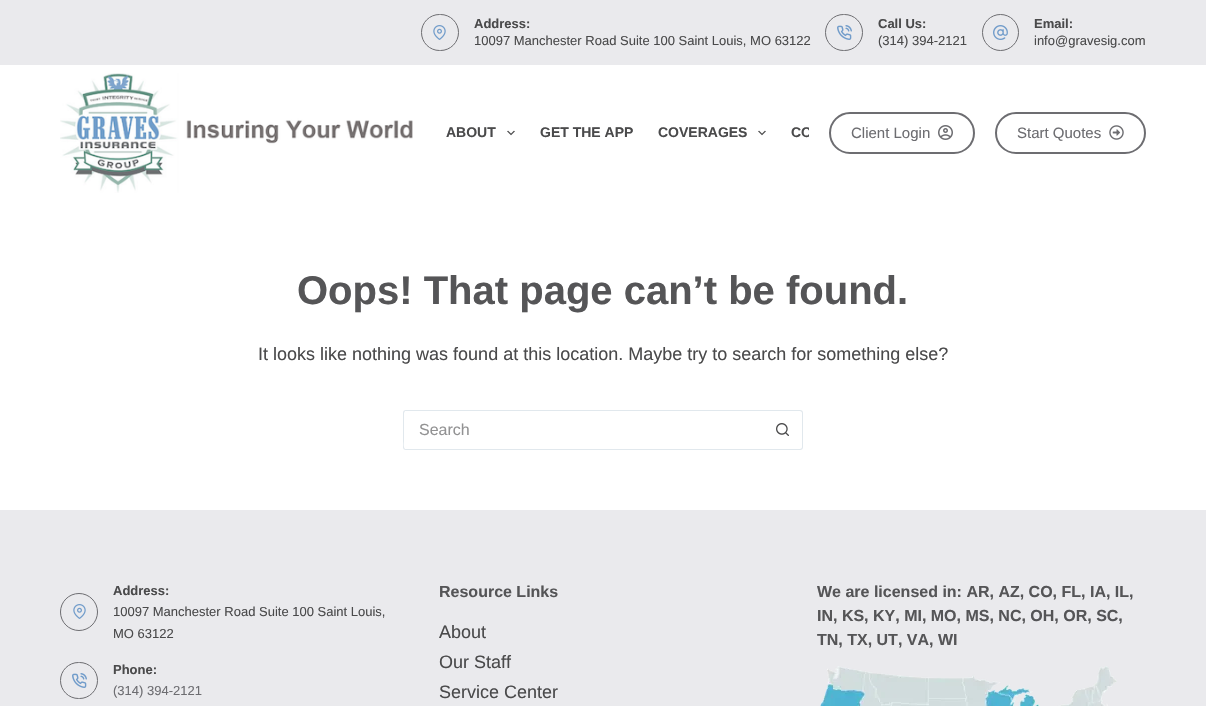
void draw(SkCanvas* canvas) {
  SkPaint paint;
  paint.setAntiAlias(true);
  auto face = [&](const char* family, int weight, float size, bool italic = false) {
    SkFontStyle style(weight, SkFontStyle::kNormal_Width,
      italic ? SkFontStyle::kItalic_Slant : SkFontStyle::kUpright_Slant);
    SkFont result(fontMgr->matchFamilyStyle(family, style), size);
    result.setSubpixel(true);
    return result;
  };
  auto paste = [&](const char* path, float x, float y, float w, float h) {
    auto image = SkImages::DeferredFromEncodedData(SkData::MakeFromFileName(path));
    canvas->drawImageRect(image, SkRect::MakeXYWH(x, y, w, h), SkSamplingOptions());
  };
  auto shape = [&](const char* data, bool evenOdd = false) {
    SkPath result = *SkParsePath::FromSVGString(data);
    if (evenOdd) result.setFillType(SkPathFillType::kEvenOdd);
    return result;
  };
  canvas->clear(0xffffffff);
  paint.setColor(0xffeaeaed);
  canvas->drawRect(SkRect::MakeXYWH(0, 0, 1206, 65), paint);
  paint.setStroke(true);
  paint.setStrokeWidth(1);
  paint.setColor(0xff6d6d71);
  canvas->drawRoundRect(SkRect::MakeXYWH(421.5f, 14.5f, 37, 36), 18, 18, paint);
  paste("img/1.png", 433, 25, 13, 15);
  canvas->drawRoundRect(SkRect::MakeXYWH(825.5f, 14.5f, 37, 36), 18, 18, paint);
  paste("img/2.png", 837, 25, 15, 15);
  canvas->drawCircle(1000.5f, 32.5f, 18, paint);
  paste("img/3.png", 993, 25, 15, 15);
  paste("img/4.png", 60, 73, 353, 120);
  paste("img/5.png", 507, 130, 8, 6);
  paste("img/5.png", 758, 130, 8, 6);
  paint.setStrokeWidth(2);
  canvas->drawRoundRect(SkRect::MakeXYWH(830, 113, 144, 40), 20, 20, paint);
  paste("img/6.png", 938, 125, 15, 15);
  canvas->drawRoundRect(SkRect::MakeXYWH(996, 113, 149, 40), 20, 20, paint);
  paste("img/7.png", 1109, 125, 15, 15);
  paint.setStroke(false);
  paint.setColor(0xffe1e8ed);
  canvas->drawPath(shape("M406 410H763V450H406C404 450 403 449 403 447V413C403 411 404 410 406 410ZM406 411H763V449H405C403 447 404 442 404 441V413L405 411Z", true), paint);
  canvas->drawPath(shape("M763 410H800C802 410 803 411 803 413V447C803 449 802 450 800 450H763ZM763 411H800C801 411 802 412 802 413V447C802 448 801 449 800 449H763Z", true), paint);
  paste("img/8.png", 776, 423, 13, 13);
  paint.setColor(0xffeaeaed);
  canvas->drawRect(SkRect::MakeXYWH(0, 510, 1206, 196), paint);
  paint.setStroke(true);
  paint.setStrokeWidth(1);
  paint.setColor(0xff6d6d71);
  canvas->drawCircle(79, 612, 18.5f, paint);
  paste("img/1.png", 73, 604, 13, 15);
  canvas->drawRoundRect(SkRect::MakeXYWH(60.5f, 662.5f, 37, 36), 18, 18, paint);
  paste("img/2.png", 72, 673, 15, 15);
  paste("img/9.png", 820, 666, 297, 40);
  auto f0 = face("Liberation Sans", 700, 13);
  paint.setStroke(false);
  paint.setColor(0xff4a4a4b);
  canvas->drawString("Address:", 474, 28, f0, paint);
  auto f1 = face("Liberation Sans", 400, 13);
  canvas->drawString("10097 Manchester Road Suite 100 Saint Louis, MO 63122", 474, 45, f1, paint);
  canvas->drawString("Call Us:", 878, 28, f0, paint);
  canvas->drawString("(314) 394-2121", 878, 45, f1, paint);
  canvas->drawString("Email:", 1034, 28, f0, paint);
  canvas->drawString("info@gravesig.com", 1034, 45, f1, paint);
  auto f2 = face("Liberation Sans", 700, 14);
  {
    const struct { const char* s; float x, y; } items[] = {
      {"ABOUT", 446, 137},
      {"GET THE APP", 540, 137},
      {"COVERAGES", 658, 137},
    };
    for (auto [s, x, y] : items) {
      canvas->drawString(s, x, y, f2, paint);
    }
  }
  canvas->save();
  canvas->clipRect(SkRect::MakeXYWH(434, 65, 375, 135));
  canvas->drawString("CO", 791, 137, f2, paint);
  canvas->restore();
  auto f3 = face("Liberation Sans", 400, 15);
  paint.setColor(0xff6d6d71);
  canvas->drawString("Client Login", 851, 138, f3, paint);
  canvas->drawString("Start Quotes", 1017, 138, f3, paint);
  auto f4 = face("Liberation Sans", 700, 40);
  paint.setColor(0xff555557);
  canvas->drawString("Oops! That page can’t be found.", 297, 304, f4, paint);
  auto f5 = face("Liberation Sans", 400, 18);
  paint.setColor(0xff4a4a4b);
  canvas->drawString("It looks like nothing was found at this location. Maybe try to search for something else?", 258, 360, f5, paint);
  auto f6 = face("Liberation Sans", 400, 16);
  paint.setColor(0xff929293);
  canvas->drawString("Search", 419, 435, f6, paint);
  paint.setColor(0xff4a4a4b);
  canvas->drawString("Address:", 113, 595, f0, paint);
  canvas->drawString("10097 Manchester Road Suite 100 Saint Louis,", 113, 616, f1, paint);
  canvas->drawString("MO 63122", 113, 638, f1, paint);
  canvas->drawString("Phone:", 113, 674, f0, paint);
  paint.setColor(0xff6d6d71);
  canvas->drawString("(314) 394-2121", 113, 695, f1, paint);
  auto f7 = face("Liberation Sans", 700, 16);
  paint.setColor(0xff555557);
  canvas->drawString("Resource Links", 439, 597, f7, paint);
  paint.setColor(0xff4a4a4b);
  {
    const struct { const char* s; float x, y; } items[] = {
      {"About", 439, 638},
      {"Our Staff", 439, 668},
      {"Service Center", 439, 698},
    };
    for (auto [s, x, y] : items) {
      canvas->drawString(s, x, y, f5, paint);
    }
  }
  paint.setColor(0xff555557);
  {
    const struct { const char* s; float x, y; } items[] = {
      {"We are licensed in: AR, AZ, CO, FL, IA, IL,", 817, 597},
      {"IN, KS, KY, MI, MO, MS, NC, OH, OR, SC,", 817, 621},
      {"TN, TX, UT, VA, WI", 817, 645},
    };
    for (auto [s, x, y] : items) {
      canvas->drawString(s, x, y, f7, paint);
    }
  }
}
